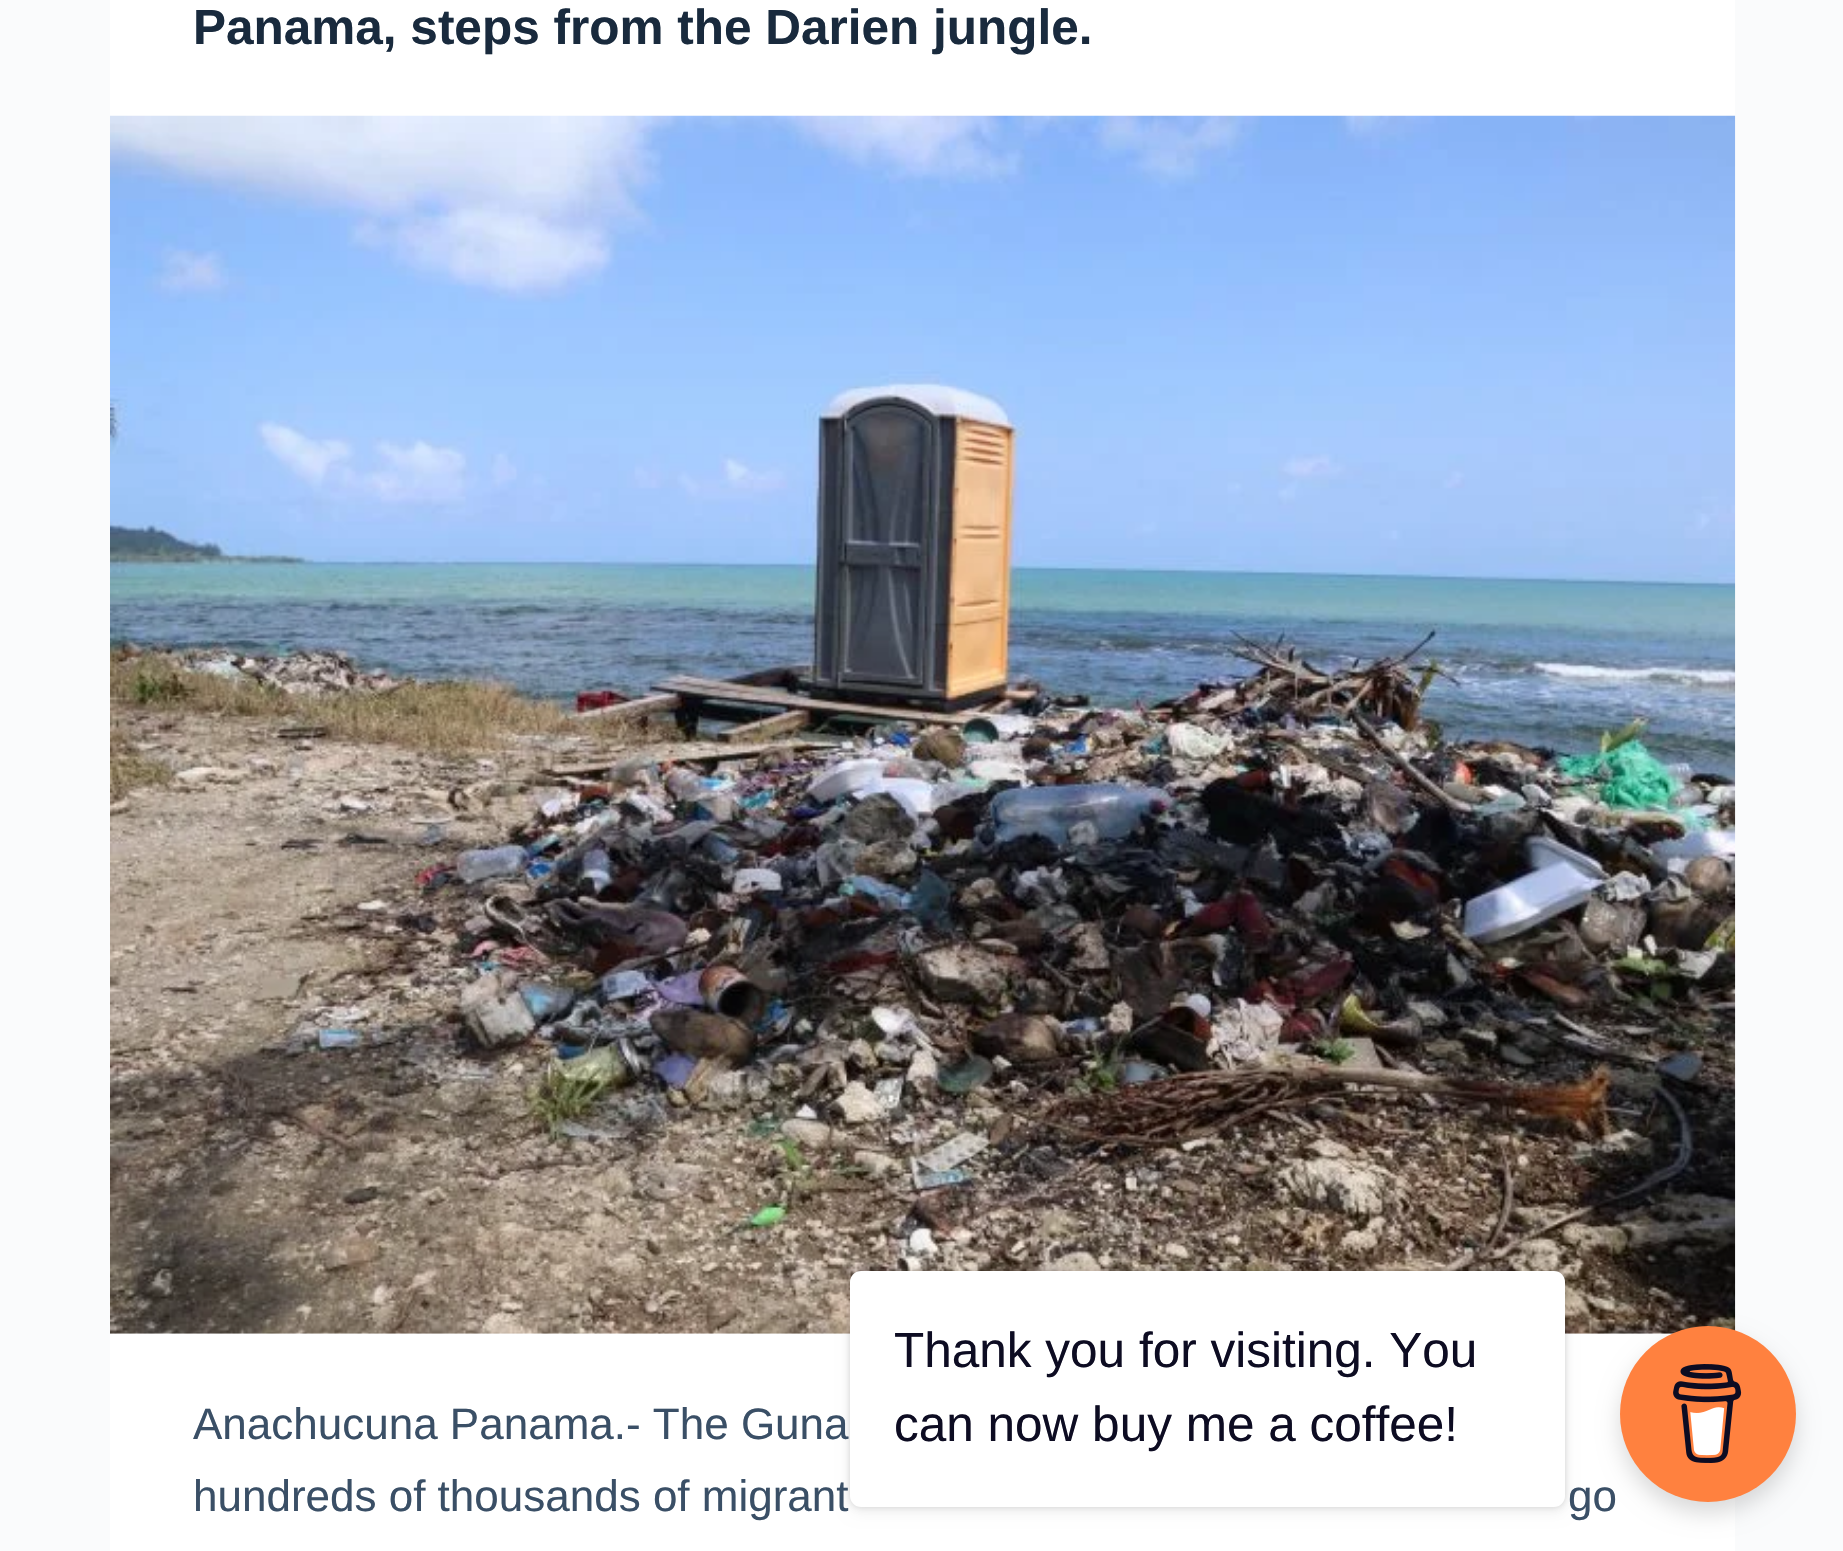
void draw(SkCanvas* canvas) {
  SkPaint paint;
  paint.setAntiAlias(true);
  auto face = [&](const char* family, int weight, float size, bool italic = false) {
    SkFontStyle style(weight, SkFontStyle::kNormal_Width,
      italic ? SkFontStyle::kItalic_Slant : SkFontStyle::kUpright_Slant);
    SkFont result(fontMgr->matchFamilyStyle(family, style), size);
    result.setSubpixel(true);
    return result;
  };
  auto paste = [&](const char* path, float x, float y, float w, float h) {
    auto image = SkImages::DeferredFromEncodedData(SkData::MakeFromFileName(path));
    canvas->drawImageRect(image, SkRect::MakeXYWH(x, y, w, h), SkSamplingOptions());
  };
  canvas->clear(0xfffafbfc);
  paint.setColor(0xffffffff);
  canvas->drawRect(SkRect::MakeXYWH(110, 0, 1625, 1551), paint);
  paste("img/1.png", 110, 115, 1626, 1219);
  paint.setColor(0x26000000);
  paint.setMaskFilter(SkMaskFilter::MakeBlur(kNormal_SkBlurStyle, 11));
  canvas->drawRoundRect(SkRect::MakeXYWH(1620, 1337, 176, 176), 88, 88, paint);
  paint.setMaskFilter(nullptr);
  paint.setColor(0xffff813f);
  canvas->drawCircle(1708, 1414, 88, paint);
  paste("img/2.png", 1673, 1364, 69, 99);
  paint.setColor(0x26000000);
  paint.setMaskFilter(SkMaskFilter::MakeBlur(kNormal_SkBlurStyle, 3));
  canvas->drawRoundRect(SkRect::MakeXYWH(850, 1271, 715, 236), 11, 11, paint);
  paint.setMaskFilter(nullptr);
  paint.setColor(0x0d000000);
  paint.setMaskFilter(SkMaskFilter::MakeBlur(kNormal_SkBlurStyle, 7));
  canvas->drawRoundRect(SkRect::MakeXYWH(850, 1276, 715, 237), 11, 11, paint);
  paint.setMaskFilter(nullptr);
  paint.setColor(0xffffffff);
  canvas->drawRoundRect(SkRect::MakeXYWH(850, 1271, 715, 236), 11, 11, paint);
  auto f0 = face("Liberation Sans", 700, 49.5f);
  paint.setColor(0xff192a3d);
  canvas->drawString("Panama, steps from the Darien jungle.", 193, 44, f0, paint);
  auto f1 = face("Liberation Sans", 400, 44);
  paint.setColor(0xff3a4f66);
  {
    const struct { const char* s; float x, y; } items[] = {
      {"Anachucuna Panama.- The Guna", 193, 1439},
      {"hundreds of thousands of migrant", 193, 1511},
      {"go", 1568, 1511},
    };
    for (auto [s, x, y] : items) {
      canvas->drawString(s, x, y, f1, paint);
    }
  }
  auto f2 = face("Liberation Sans", 400, 49.5f);
  paint.setColor(0xff0d0c22);
  canvas->drawString("Thank you for visiting. You", 894, 1367, f2, paint);
  canvas->drawString("can now buy me a coffee!", 894, 1441, f2, paint);
}
